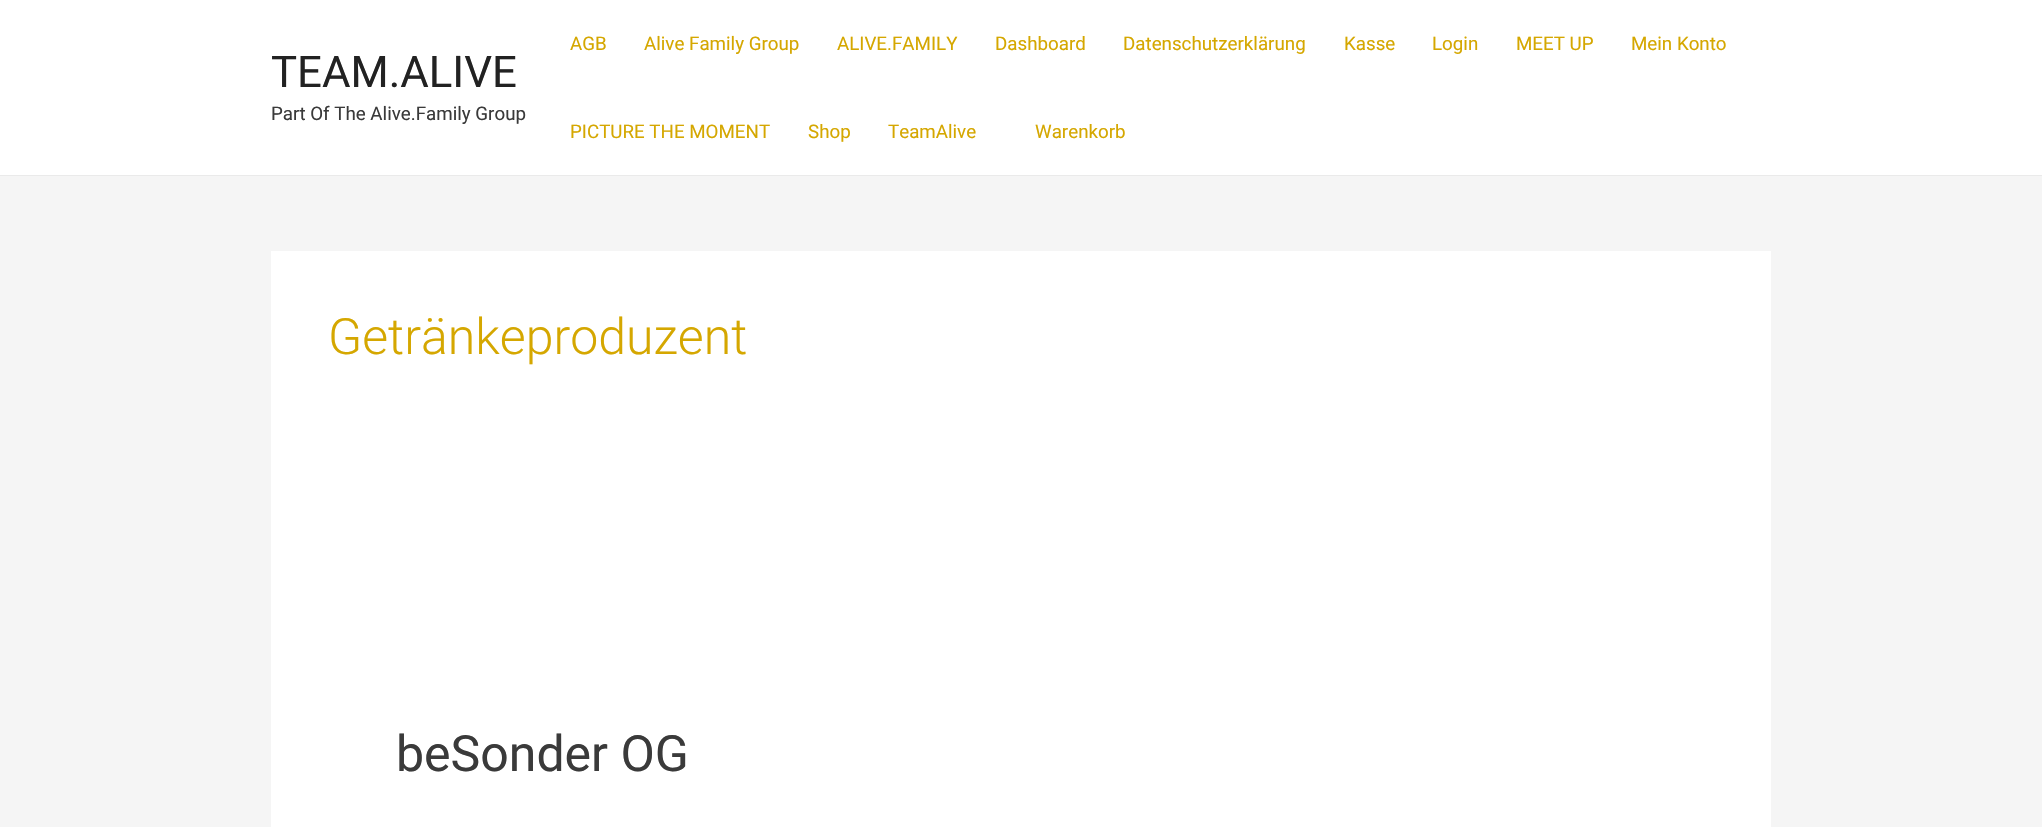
void draw(SkCanvas* canvas) {
  SkPaint paint;
  paint.setAntiAlias(true);
  auto face = [&](const char* family, int weight, float size, bool italic = false) {
    SkFontStyle style(weight, SkFontStyle::kNormal_Width,
      italic ? SkFontStyle::kItalic_Slant : SkFontStyle::kUpright_Slant);
    SkFont result(fontMgr->matchFamilyStyle(family, style), size);
    result.setSubpixel(true);
    return result;
  };
  canvas->clear(0xfff5f5f5);
  {
    const struct { float x, y, w, h; SkColor color; } items[] = {
      {0, 0, 2042, 175, 0xffffffff},
      {0, 175, 2042, 1, 0xffeaeaea},
      {271, 251, 1500, 576, 0xffffffff},
    };
    for (auto [x, y, w, h, color] : items) {
      paint.setColor(color);
      canvas->drawRect(SkRect::MakeXYWH(x, y, w, h), paint);
    }
  }
  auto f0 = face("Roboto", 400, 43.75f);
  paint.setColor(0xff222222);
  canvas->drawString("TEAM.ALIVE", 271, 87, f0, paint);
  auto f1 = face("Roboto", 400, 18.75f);
  paint.setColor(0xff3a3a3a);
  canvas->drawString("Part Of The Alive.Family Group", 271, 120, f1, paint);
  paint.setColor(0xffd5a700);
  {
    const struct { const char* s; float x, y; } items[] = {
      {"AGB", 570, 50},
      {"Alive Family Group", 644, 50},
      {"ALIVE.FAMILY", 837, 50},
      {"Dashboard", 995, 50},
      {"Datenschutzerklärung", 1123, 50},
      {"Kasse", 1344, 50},
      {"Login", 1432, 50},
      {"MEET UP", 1516, 50},
      {"Mein Konto", 1631, 50},
      {"PICTURE THE MOMENT", 570, 138},
      {"Shop", 808, 138},
      {"TeamAlive", 888, 138},
      {"Warenkorb", 1035, 138},
    };
    for (auto [s, x, y] : items) {
      canvas->drawString(s, x, y, f1, paint);
    }
  }
  auto f2 = face("Roboto", 300, 50);
  canvas->drawString("Getränkeproduzent", 328, 354, f2, paint);
  auto f3 = face("Roboto", 400, 50);
  paint.setColor(0xff3a3a3a);
  canvas->drawString("beSonder OG", 396, 771, f3, paint);
}
